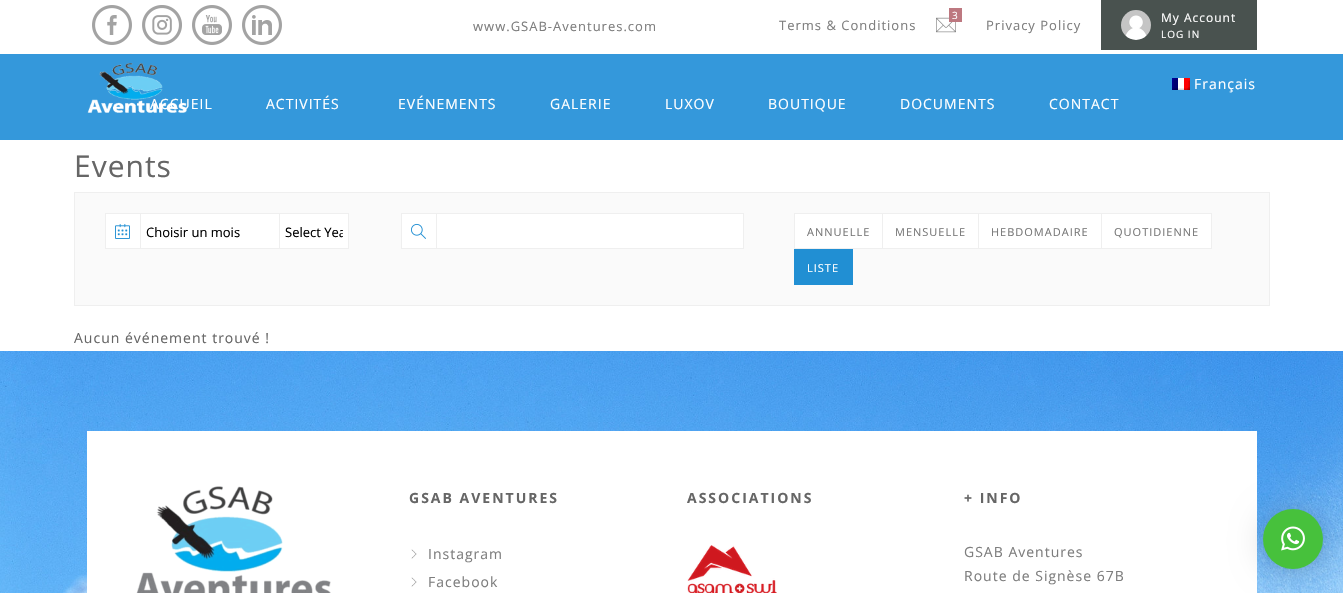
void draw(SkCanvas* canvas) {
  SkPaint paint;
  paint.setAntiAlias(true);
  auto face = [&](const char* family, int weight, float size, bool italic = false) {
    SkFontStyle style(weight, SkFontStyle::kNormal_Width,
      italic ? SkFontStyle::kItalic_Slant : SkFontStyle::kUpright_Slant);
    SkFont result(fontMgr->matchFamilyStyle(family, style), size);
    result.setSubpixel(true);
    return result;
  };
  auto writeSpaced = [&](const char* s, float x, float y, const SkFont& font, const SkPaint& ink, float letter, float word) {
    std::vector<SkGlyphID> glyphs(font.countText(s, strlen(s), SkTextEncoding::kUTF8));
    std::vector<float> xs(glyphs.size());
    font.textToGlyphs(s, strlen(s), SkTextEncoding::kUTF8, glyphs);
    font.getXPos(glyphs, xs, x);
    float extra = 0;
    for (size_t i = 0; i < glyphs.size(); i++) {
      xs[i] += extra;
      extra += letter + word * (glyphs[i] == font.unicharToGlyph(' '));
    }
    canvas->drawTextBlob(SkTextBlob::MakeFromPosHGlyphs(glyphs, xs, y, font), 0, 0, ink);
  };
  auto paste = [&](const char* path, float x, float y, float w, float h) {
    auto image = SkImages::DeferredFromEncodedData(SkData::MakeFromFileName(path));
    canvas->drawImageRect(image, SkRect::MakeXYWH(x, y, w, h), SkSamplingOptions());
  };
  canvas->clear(0xffffffff);
  paste("img/1.png", 92, 5, 40, 40);
  paste("img/2.png", 142, 5, 40, 40);
  paste("img/3.png", 192, 5, 40, 40);
  paste("img/4.png", 242, 5, 40, 40);
  paste("img/5.png", 936, 17, 20, 16);
  paint.setColor(0xffbd7880);
  canvas->drawRect(SkRect::MakeXYWH(949, 8, 13, 14), paint);
  paint.setColor(0xff49524f);
  canvas->drawRect(SkRect::MakeXYWH(1101, 0, 156, 50), paint);
  paste("img/6.png", 1121, 10, 30, 30);
  paint.setColor(0xff3498db);
  canvas->drawRect(SkRect::MakeXYWH(0, 54, 1343, 86), paint);
  paste("img/8.png", 1172, 78, 18, 12);
  paint.setColor(0xfffafafa);
  canvas->drawRect(SkRect::MakeXYWH(74.5f, 192.5f, 1195, 113), paint);
  paint.setStroke(true);
  paint.setStrokeWidth(1);
  paint.setColor(0xffefefef);
  canvas->drawRect(SkRect::MakeXYWH(74.5f, 192.5f, 1195, 113), paint);
  paint.setStroke(false);
  paint.setColor(0xffffffff);
  canvas->drawRect(SkRect::MakeXYWH(105.5f, 213.5f, 35, 35), paint);
  paint.setStroke(true);
  paint.setColor(0xffefefef);
  canvas->drawRect(SkRect::MakeXYWH(105.5f, 213.5f, 35, 35), paint);
  paste("img/9.png", 115, 224, 15, 15);
  paint.setStroke(false);
  paint.setColor(0xffffffff);
  canvas->drawRect(SkRect::MakeXYWH(140.5f, 213.5f, 139, 35), paint);
  paint.setStroke(true);
  paint.setColor(0xffefefef);
  canvas->drawRect(SkRect::MakeXYWH(140.5f, 213.5f, 139, 35), paint);
  paint.setStroke(false);
  paint.setColor(0xffffffff);
  canvas->drawRect(SkRect::MakeXYWH(279.5f, 213.5f, 69, 35), paint);
  paint.setStroke(true);
  paint.setColor(0xffefefef);
  canvas->drawRect(SkRect::MakeXYWH(279.5f, 213.5f, 69, 35), paint);
  paint.setStroke(false);
  paint.setColor(0xffffffff);
  canvas->drawRect(SkRect::MakeXYWH(401.5f, 213.5f, 35, 35), paint);
  paint.setStroke(true);
  paint.setColor(0xffefefef);
  canvas->drawRect(SkRect::MakeXYWH(401.5f, 213.5f, 35, 35), paint);
  paste("img/10.png", 411, 223, 15, 16);
  paint.setStroke(false);
  paint.setColor(0xffffffff);
  canvas->drawRect(SkRect::MakeXYWH(436.5f, 213.5f, 307, 35), paint);
  paint.setStroke(true);
  paint.setColor(0xffefefef);
  canvas->drawRect(SkRect::MakeXYWH(436.5f, 213.5f, 307, 35), paint);
  paint.setStroke(false);
  paint.setColor(0xffffffff);
  canvas->drawRect(SkRect::MakeXYWH(794.5f, 213.5f, 88, 35), paint);
  paint.setStroke(true);
  paint.setColor(0xffefefef);
  canvas->drawRect(SkRect::MakeXYWH(794.5f, 213.5f, 88, 35), paint);
  paint.setStroke(false);
  paint.setColor(0xffffffff);
  canvas->drawRect(SkRect::MakeXYWH(882.5f, 213.5f, 96, 35), paint);
  paint.setStroke(true);
  paint.setColor(0xffefefef);
  canvas->drawRect(SkRect::MakeXYWH(882.5f, 213.5f, 96, 35), paint);
  paint.setStroke(false);
  paint.setColor(0xffffffff);
  canvas->drawRect(SkRect::MakeXYWH(978.5f, 213.5f, 123, 35), paint);
  paint.setStroke(true);
  paint.setColor(0xffefefef);
  canvas->drawRect(SkRect::MakeXYWH(978.5f, 213.5f, 123, 35), paint);
  paint.setStroke(false);
  paint.setColor(0xffffffff);
  canvas->drawRect(SkRect::MakeXYWH(1101.5f, 213.5f, 110, 35), paint);
  paint.setStroke(true);
  paint.setColor(0xffefefef);
  canvas->drawRect(SkRect::MakeXYWH(1101.5f, 213.5f, 110, 35), paint);
  paint.setStroke(false);
  {
    const struct { float x, y, w, h; SkColor color; } items[] = {
      {795, 250, 56, 34, 0xff218fd3},
      {794, 249, 59, 1, 0xff218fd3},
      {851, 249, 2, 36, 0xff218fd3},
      {794, 284, 59, 1, 0xff218fd3},
      {794, 249, 1, 36, 0xff218fd3},
    };
    for (auto [x, y, w, h, color] : items) {
      paint.setColor(color);
      canvas->drawRect(SkRect::MakeXYWH(x, y, w, h), paint);
    }
  }
  paste("img/11.png", 0, 351, 1343, 242);
  paint.setColor(0xffffffff);
  canvas->drawRect(SkRect::MakeXYWH(87, 431, 1170, 162), paint);
  paste("img/12.png", 136, 486, 195, 107);
  paste("img/13.png", 411, 549, 6, 10);
  paste("img/13.png", 411, 577, 6, 10);
  paste("img/14.png", 687, 545, 90, 48);
  paint.setColor(0x29000000);
  paint.setMaskFilter(SkMaskFilter::MakeBlur(kNormal_SkBlurStyle, 16));
  canvas->drawRoundRect(SkRect::MakeXYWH(1263, 511, 60, 60), 30, 30, paint);
  paint.setMaskFilter(nullptr);
  paint.setColor(0x0f000000);
  paint.setMaskFilter(SkMaskFilter::MakeBlur(kNormal_SkBlurStyle, 3));
  canvas->drawRoundRect(SkRect::MakeXYWH(1263, 510, 60, 60), 30, 30, paint);
  paint.setMaskFilter(nullptr);
  paint.setColor(0xff47c13c);
  canvas->drawCircle(1293, 539, 30, paint);
  paste("img/15.png", 1281, 526, 24, 25);
  auto f0 = face("Open Sans", 400, 13);
  paint.setColor(0xff7e7e7e);
  writeSpaced("www.GSAB-Aventures.com", 473, 31, f0, paint, 1, 0);
  writeSpaced("Terms & Conditions", 779, 30, f0, paint, 1, 0);
  auto f1 = face("Open Sans", 400, 10);
  paint.setColor(0xffffffff);
  writeSpaced("3", 952, 19, f1, paint, 1, 0);
  paint.setColor(0xff7e7e7e);
  writeSpaced("Privacy Policy", 986, 30, f0, paint, 1, 0);
  auto f2 = face("Open Sans", 400, 12);
  paint.setColor(0xffffffff);
  writeSpaced("My Account", 1161, 22, f2, paint, 1, 0);
  writeSpaced("LOG IN", 1161, 38, f1, paint, 1, 0);
  auto f3 = face("Open Sans", 400, 14);
  writeSpaced("Français", 1194, 89, f3, paint, 1, 0);
  writeSpaced("ACCUEIL", 150, 109, f3, paint, 1, 0);
  paste("img/7.png", 87, 63, 100, 50);
  {
    const struct { const char* s; float x, y; } items[] = {
      {"ACTIVITÉS", 266, 109},
      {"EVÉNEMENTS", 398, 109},
      {"GALERIE", 550, 109},
      {"LUXOV", 665, 109},
      {"BOUTIQUE", 768, 109},
      {"DOCUMENTS", 900, 109},
      {"CONTACT", 1049, 109},
    };
    for (auto [s, x, y] : items) {
      writeSpaced(s, x, y, f3, paint, 1, 0);
    }
  }
  auto f4 = face("Open Sans", 400, 30);
  paint.setColor(0xff666666);
  writeSpaced("Events", 74, 177, f4, paint, 1, 0);
  paint.setColor(0xff000000);
  canvas->drawString("Choisir un mois", 146, 237, f0, paint);
  canvas->save();
  canvas->clipRect(SkRect::MakeXYWH(285, 214, 58, 36));
  canvas->drawString("Select Yea", 285, 237, f0, paint);
  canvas->restore();
  auto f5 = face("Open Sans", 400, 11);
  paint.setColor(0xff777777);
  {
    const struct { const char* s; float x, y; } items[] = {
      {"ANNUELLE", 807, 236},
      {"MENSUELLE", 895, 236},
      {"HEBDOMADAIRE", 991, 236},
      {"QUOTIDIENNE", 1114, 236},
    };
    for (auto [s, x, y] : items) {
      writeSpaced(s, x, y, f5, paint, 1, 0);
    }
  }
  paint.setColor(0xffffffff);
  writeSpaced("LISTE", 807, 272, f5, paint, 1, 0);
  paint.setColor(0xff666666);
  writeSpaced("Aucun événement trouvé !", 74, 343, f3, paint, 1, 0);
  auto f6 = face("Open Sans", 700, 14);
  writeSpaced("GSAB AVENTURES", 409, 503, f6, paint, 2, 0);
  paint.setColor(0xff7e7e7e);
  writeSpaced("Instagram", 428, 559, f3, paint, 1, 0);
  writeSpaced("Facebook", 428, 587, f3, paint, 1, 0);
  paint.setColor(0xff666666);
  writeSpaced("ASSOCIATIONS", 687, 503, f6, paint, 2, 0);
  writeSpaced("+ INFO", 964, 503, f6, paint, 2, 0);
  paint.setColor(0xff7e7e7e);
  writeSpaced("GSAB Aventures", 964, 557, f3, paint, 1, 0);
  writeSpaced("Route de Signèse 67B", 964, 581, f3, paint, 1, 0);
}
